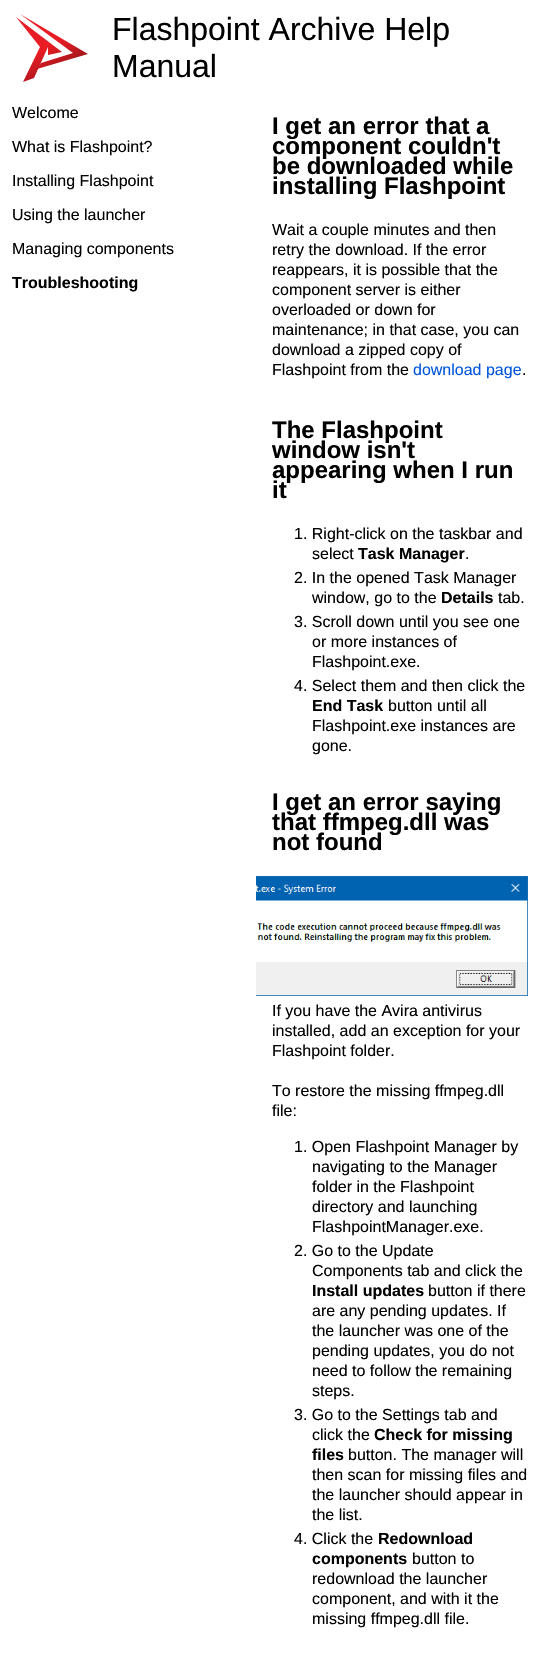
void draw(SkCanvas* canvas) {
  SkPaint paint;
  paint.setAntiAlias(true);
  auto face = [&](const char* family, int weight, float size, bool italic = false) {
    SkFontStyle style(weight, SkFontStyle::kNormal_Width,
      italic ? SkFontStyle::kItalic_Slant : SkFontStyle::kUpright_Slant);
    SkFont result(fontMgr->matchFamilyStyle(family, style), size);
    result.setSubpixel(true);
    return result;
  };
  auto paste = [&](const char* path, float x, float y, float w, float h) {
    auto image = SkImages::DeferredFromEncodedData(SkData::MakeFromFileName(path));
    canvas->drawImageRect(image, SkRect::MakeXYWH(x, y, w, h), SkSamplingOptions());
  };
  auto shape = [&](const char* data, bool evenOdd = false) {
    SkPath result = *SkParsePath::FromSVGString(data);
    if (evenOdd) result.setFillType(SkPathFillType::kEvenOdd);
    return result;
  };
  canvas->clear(0xffffffff);
  {
    const SkColor colors[] = {0xffe81c24, 0xff7c1315};
    const float stops[] = {0, 1};
    const SkPoint ends[] = {{48, 47}, {69, 83}};
    paint.setShader(SkGradientShader::MakeLinear(ends, colors, stops, 2, SkTileMode::kClamp));
    paint.setAlpha(255);
  }
  canvas->drawPath(shape("M37 69L88 54L20 14L73 53L41 63Z"), paint);
  canvas->drawPath(shape("M16 17L40 47L23 82L34 78L48 47V55L62 52Z"), paint);
  paste("img/1.png", 256, 876, 272, 120);
  auto f0 = face("Liberation Sans", 400, 32);
  paint.setShader(nullptr);
  paint.setColor(0xff000000);
  canvas->drawString("Flashpoint Archive Help", 112, 40, f0, paint);
  canvas->drawString("Manual", 112, 77, f0, paint);
  auto f1 = face("Liberation Sans", 400, 16);
  {
    const struct { const char* s; float x, y; } items[] = {
      {"Welcome", 12, 118},
      {"What is Flashpoint?", 12, 152},
      {"Installing Flashpoint", 12, 186},
      {"Using the launcher", 12, 220},
      {"Managing components", 12, 254},
    };
    for (auto [s, x, y] : items) {
      canvas->drawString(s, x, y, f1, paint);
    }
  }
  auto f2 = face("Liberation Sans", 700, 16);
  canvas->drawString("Troubleshooting", 12, 288, f2, paint);
  auto f3 = face("Liberation Sans", 700, 24);
  {
    const struct { const char* s; float x, y; } items[] = {
      {"I get an error that a", 272, 134},
      {"component couldn't", 272, 154},
      {"be downloaded while", 272, 174},
      {"installing Flashpoint", 272, 194},
    };
    for (auto [s, x, y] : items) {
      canvas->drawString(s, x, y, f3, paint);
    }
  }
  {
    const struct { const char* s; float x, y; } items[] = {
      {"Wait a couple minutes and then", 272, 235},
      {"retry the download. If the error", 272, 255},
      {"reappears, it is possible that the", 272, 275},
      {"component server is either", 272, 295},
      {"overloaded or down for", 272, 315},
      {"maintenance; in that case, you can", 272, 335},
      {"download a zipped copy of", 272, 355},
      {"Flashpoint from the", 272, 375},
    };
    for (auto [s, x, y] : items) {
      canvas->drawString(s, x, y, f1, paint);
    }
  }
  paint.setColor(0xff0055dd);
  canvas->drawString("download page", 413, 375, f1, paint);
  paint.setColor(0xff000000);
  canvas->drawString(".", 522, 375, f1, paint);
  {
    const struct { const char* s; float x, y; } items[] = {
      {"The Flashpoint", 272, 438},
      {"window isn't", 272, 458},
      {"appearing when I run", 272, 478},
      {"it", 272, 498},
    };
    for (auto [s, x, y] : items) {
      canvas->drawString(s, x, y, f3, paint);
    }
  }
  canvas->drawString("1. Right-click on the taskbar and", 294, 539, f1, paint);
  canvas->drawString("select", 312, 559, f1, paint);
  canvas->drawString("Task Manager", 358, 559, f2, paint);
  {
    const struct { const char* s; float x, y; } items[] = {
      {".", 465, 559},
      {"2. In the opened Task Manager", 294, 583},
      {"window, go to the", 312, 603},
    };
    for (auto [s, x, y] : items) {
      canvas->drawString(s, x, y, f1, paint);
    }
  }
  canvas->drawString("Details", 441, 603, f2, paint);
  {
    const struct { const char* s; float x, y; } items[] = {
      {"tab.", 498, 603},
      {"3. Scroll down until you see one", 294, 627},
      {"or more instances of", 312, 647},
      {"Flashpoint.exe.", 312, 667},
      {"4. Select them and then click the", 294, 691},
    };
    for (auto [s, x, y] : items) {
      canvas->drawString(s, x, y, f1, paint);
    }
  }
  canvas->drawString("End Task", 312, 711, f2, paint);
  {
    const struct { const char* s; float x, y; } items[] = {
      {"button until all", 388, 711},
      {"Flashpoint.exe instances are", 312, 731},
      {"gone.", 312, 751},
    };
    for (auto [s, x, y] : items) {
      canvas->drawString(s, x, y, f1, paint);
    }
  }
  {
    const struct { const char* s; float x, y; } items[] = {
      {"I get an error saying", 272, 810},
      {"that ffmpeg.dll was", 272, 830},
      {"not found", 272, 850},
    };
    for (auto [s, x, y] : items) {
      canvas->drawString(s, x, y, f3, paint);
    }
  }
  {
    const struct { const char* s; float x, y; } items[] = {
      {"If you have the Avira antivirus", 272, 1016},
      {"installed, add an exception for your", 272, 1036},
      {"Flashpoint folder.", 272, 1056},
      {"To restore the missing ffmpeg.dll", 272, 1096},
      {"file:", 272, 1116},
      {"1. Open Flashpoint Manager by", 294, 1152},
      {"navigating to the Manager", 312, 1172},
      {"folder in the Flashpoint", 312, 1192},
      {"directory and launching", 312, 1212},
      {"FlashpointManager.exe.", 312, 1232},
      {"2. Go to the Update", 294, 1256},
      {"Components tab and click the", 312, 1276},
    };
    for (auto [s, x, y] : items) {
      canvas->drawString(s, x, y, f1, paint);
    }
  }
  canvas->drawString("Install updates", 312, 1296, f2, paint);
  {
    const struct { const char* s; float x, y; } items[] = {
      {"button if there", 428, 1296},
      {"are any pending updates. If", 312, 1316},
      {"the launcher was one of the", 312, 1336},
      {"pending updates, you do not", 312, 1356},
      {"need to follow the remaining", 312, 1376},
      {"steps.", 312, 1396},
      {"3. Go to the Settings tab and", 294, 1420},
      {"click the", 312, 1440},
    };
    for (auto [s, x, y] : items) {
      canvas->drawString(s, x, y, f1, paint);
    }
  }
  canvas->drawString("Check for missing", 374, 1440, f2, paint);
  canvas->drawString("files", 312, 1460, f2, paint);
  {
    const struct { const char* s; float x, y; } items[] = {
      {"button. The manager will", 348, 1460},
      {"then scan for missing files and", 312, 1480},
      {"the launcher should appear in", 312, 1500},
      {"the list.", 312, 1520},
      {"4. Click the", 294, 1544},
    };
    for (auto [s, x, y] : items) {
      canvas->drawString(s, x, y, f1, paint);
    }
  }
  canvas->drawString("Redownload", 378, 1544, f2, paint);
  canvas->drawString("components", 312, 1564, f2, paint);
  {
    const struct { const char* s; float x, y; } items[] = {
      {"button to", 412, 1564},
      {"redownload the launcher", 312, 1584},
      {"component, and with it the", 312, 1604},
      {"missing ffmpeg.dll file.", 312, 1624},
    };
    for (auto [s, x, y] : items) {
      canvas->drawString(s, x, y, f1, paint);
    }
  }
}
